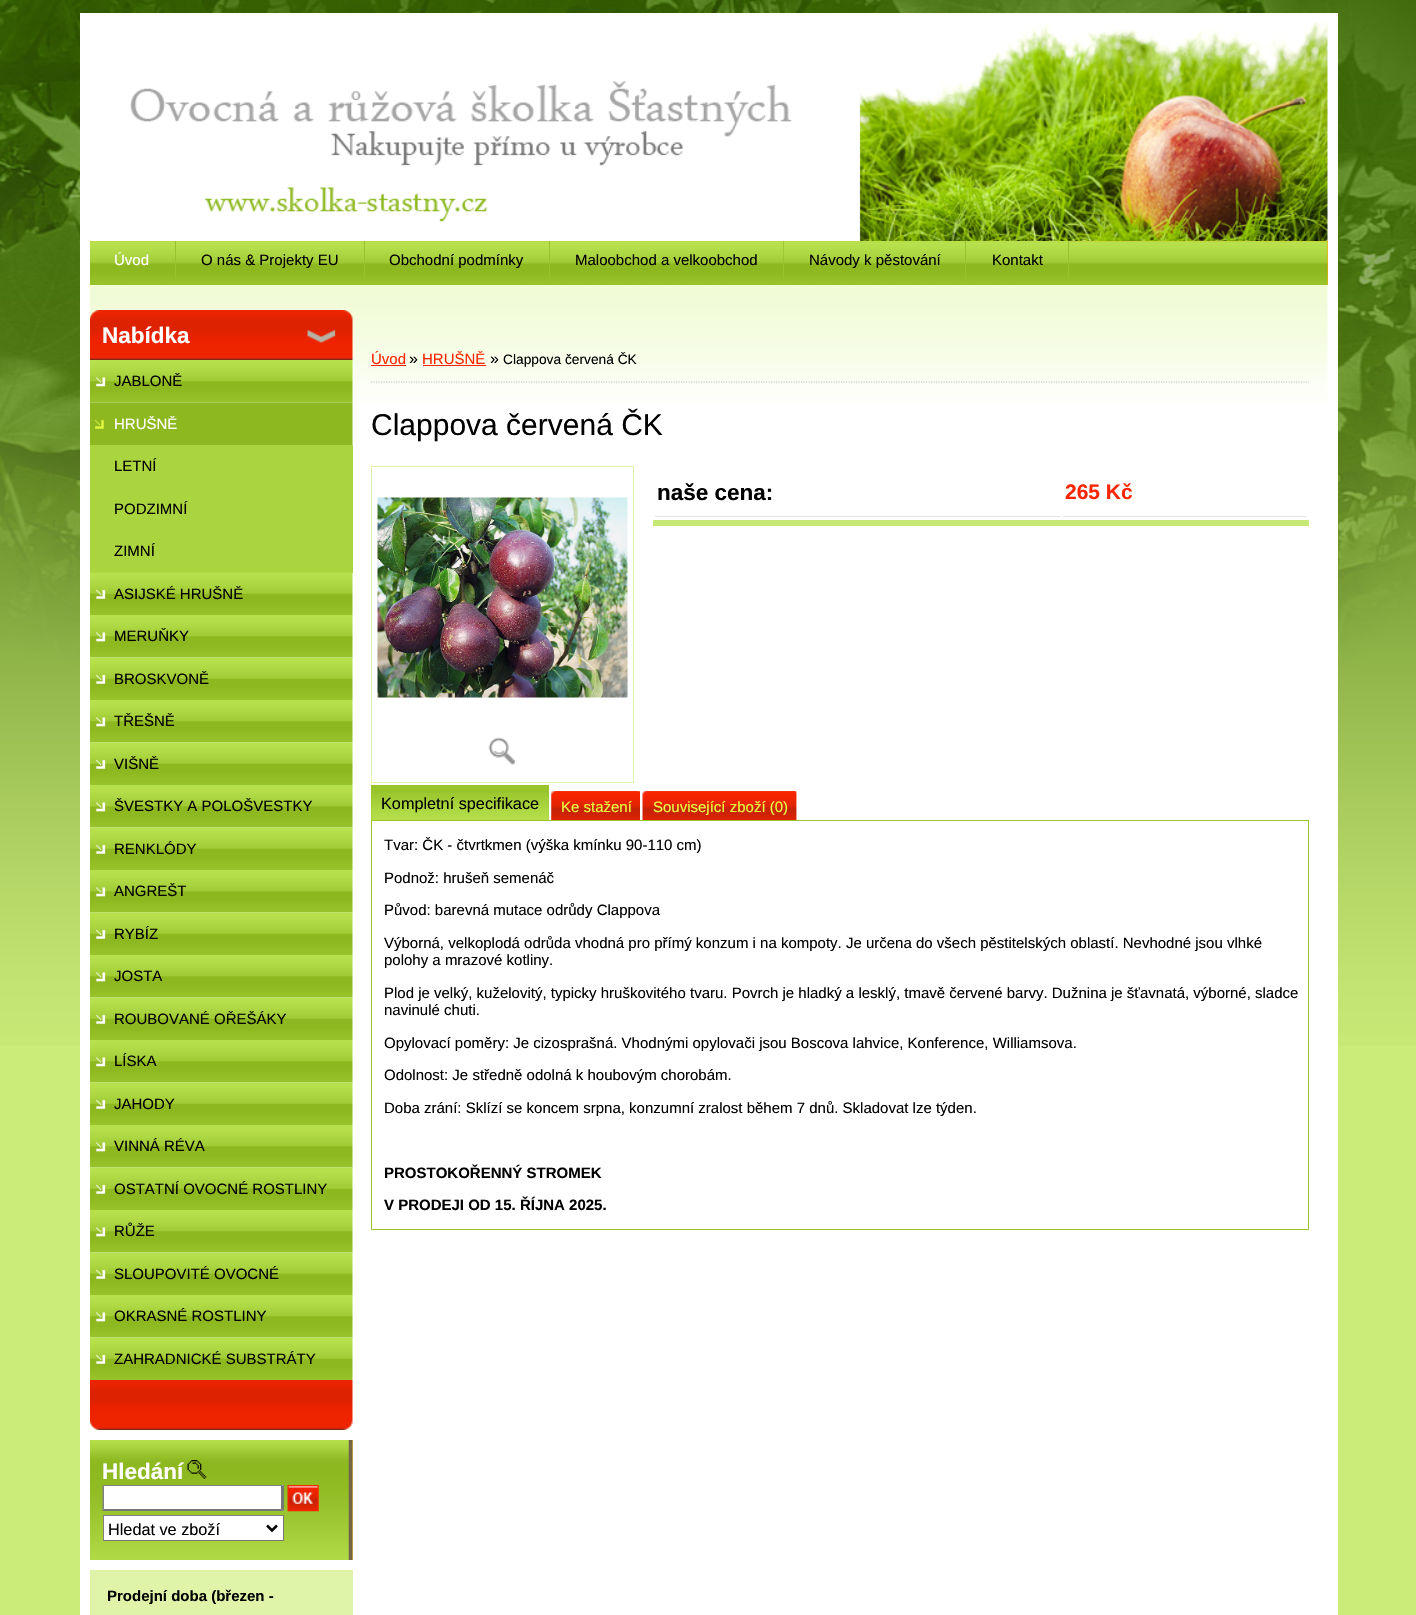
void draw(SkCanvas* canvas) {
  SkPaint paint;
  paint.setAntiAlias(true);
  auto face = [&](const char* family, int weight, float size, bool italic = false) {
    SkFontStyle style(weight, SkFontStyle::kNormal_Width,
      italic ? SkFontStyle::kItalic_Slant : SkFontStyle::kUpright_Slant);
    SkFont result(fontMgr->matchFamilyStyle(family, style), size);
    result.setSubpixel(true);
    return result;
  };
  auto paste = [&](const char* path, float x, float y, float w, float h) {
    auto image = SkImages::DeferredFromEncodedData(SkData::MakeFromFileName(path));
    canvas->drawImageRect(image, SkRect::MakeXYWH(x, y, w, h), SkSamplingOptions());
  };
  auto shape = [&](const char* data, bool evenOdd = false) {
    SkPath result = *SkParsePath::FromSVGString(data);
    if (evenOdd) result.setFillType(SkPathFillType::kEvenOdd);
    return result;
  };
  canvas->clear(0xffccec79);
  paste("img/1.png", 0, 0, 1416, 1046);
  paint.setColor(0xffffffff);
  canvas->drawRect(SkRect::MakeXYWH(80, 13, 1258, 1602), paint);
  paste("img/2.png", 130, 22, 1198, 219);
  paint.setColor(0xffffa500);
  canvas->drawRect(SkRect::MakeXYWH(176, 241, 1152, 44), paint);
  paste("img/3.png", 90, 241, 1238, 44);
  paint.setColor(0xffbbdc47);
  canvas->drawRect(SkRect::MakeXYWH(90, 241, 86, 1), paint);
  paint.setColor(0xff99c32c);
  canvas->drawRect(SkRect::MakeXYWH(175, 241, 1, 38), paint);
  paste("img/4.png", 176, 241, 188, 1);
  {
    const struct { float x, y, w, h; SkColor color; } items[] = {
      {364, 241, 1, 38, 0xff99c32c},
      {365, 241, 185, 1, 0xffbbdc47},
      {549, 241, 1, 38, 0xff99c32c},
    };
    for (auto [x, y, w, h, color] : items) {
      paint.setColor(color);
      canvas->drawRect(SkRect::MakeXYWH(x, y, w, h), paint);
    }
  }
  paste("img/5.png", 550, 241, 233, 1);
  canvas->drawRect(SkRect::MakeXYWH(783, 241, 1, 38), paint);
  paste("img/6.png", 783, 241, 182, 19);
  canvas->drawRect(SkRect::MakeXYWH(965, 241, 1, 38), paint);
  paste("img/7.png", 966, 241, 102, 1);
  canvas->drawRect(SkRect::MakeXYWH(1068, 241, 1, 38), paint);
  paste("img/8.png", 90, 285, 1238, 118);
  paste("img/9.png", 90, 310, 263, 50);
  paste("img/10.png", 90, 360, 263, 43);
  paste("img/11.png", 90, 402, 263, 43);
  paint.setColor(0xffabd53f);
  canvas->drawRect(SkRect::MakeXYWH(90, 445, 263, 128), paint);
  paste("img/12.png", 90, 572, 263, 43);
  paste("img/13.png", 90, 615, 263, 43);
  paste("img/14.png", 90, 657, 263, 43);
  paste("img/13.png", 90, 700, 263, 43);
  paste("img/14.png", 90, 742, 263, 43);
  paste("img/13.png", 90, 785, 263, 43);
  paste("img/14.png", 90, 827, 263, 43);
  paste("img/13.png", 90, 870, 263, 43);
  paste("img/14.png", 90, 912, 263, 43);
  paste("img/13.png", 90, 955, 263, 43);
  paste("img/14.png", 90, 997, 263, 43);
  paste("img/13.png", 90, 1040, 263, 43);
  paste("img/14.png", 90, 1082, 263, 43);
  paste("img/13.png", 90, 1125, 263, 43);
  paste("img/15.png", 90, 1167, 263, 43);
  paste("img/13.png", 90, 1210, 263, 43);
  paste("img/14.png", 90, 1252, 263, 43);
  paste("img/13.png", 90, 1295, 263, 43);
  paste("img/14.png", 90, 1337, 263, 43);
  paste("img/16.png", 90, 1380, 263, 50);
  paint.setColor(0xfff9cf4a);
  canvas->drawRect(SkRect::MakeXYWH(352, 1440, 1, 120), paint);
  paste("img/17.png", 90, 1440, 263, 120);
  paste("img/18.png", 187, 1460, 20, 19);
  paint.setColor(0xffffffff);
  canvas->drawRect(SkRect::MakeXYWH(103, 1485, 181, 26), paint);
  paint.setColor(0xff808080);
  canvas->drawPath(shape("M102 1485H284L281 1486H104Z"), paint);
  paint.setColor(0xff767676);
  canvas->drawPath(shape("M284 1485V1511L281 1509V1486Z"), paint);
  canvas->drawPath(shape("M284 1511H102L104 1509H281Z"), paint);
  paint.setColor(0xff808080);
  canvas->drawPath(shape("M102.5 1511V1485L104 1486V1509Z"), paint);
  paste("img/19.png", 287, 1485, 32, 27);
  {
    const struct { float x, y, w, h; SkColor color; } items[] = {
      {104, 1516, 179, 24, 0xffffffff},
      {103, 1515, 181, 1, 0xff808080},
      {283, 1515, 1, 26, 0xff767676},
      {103, 1540, 181, 1, 0xff767676},
      {103, 1515, 1, 26, 0xff808080},
    };
    for (auto [x, y, w, h, color] : items) {
      paint.setColor(color);
      canvas->drawRect(SkRect::MakeXYWH(x, y, w, h), paint);
    }
  }
  paint.setStroke(true);
  paint.setStrokeWidth(2.5f);
  paint.setColor(0xff000000);
  canvas->drawPath(shape("M267 1525.5L272 1530.5L277 1525.5"), paint);
  paint.setStroke(false);
  paint.setColor(0xffdff4a9);
  canvas->drawRect(SkRect::MakeXYWH(90, 1570, 263, 45), paint);
  paint.setStroke(true);
  paint.setStrokeWidth(1.2f);
  paint.setColor(0xffc0c0c0);
  paint.setPathEffect(SkDashPathEffect::Make({{1.25f, 1.25f}}, 0));
  canvas->drawPath(shape("M371 382H1309"), paint);
  paint.setPathEffect(nullptr);
  paint.setStroke(false);
  paint.setColor(0xfff92500);
  canvas->drawRect(SkRect::MakeXYWH(371, 365, 35, 1), paint);
  canvas->drawRect(SkRect::MakeXYWH(423, 365, 63, 1), paint);
  paint.setStroke(true);
  paint.setStrokeWidth(1);
  paint.setColor(0xffdff4a9);
  canvas->drawRect(SkRect::MakeXYWH(371.5f, 466.5f, 262, 316), paint);
  paste("img/20.png", 377, 497, 251, 201);
  paste("img/21.png", 488, 737, 27, 28);
  paint.setStroke(false);
  {
    const struct { float x, y, w, h; SkColor color; } items[] = {
      {653, 520, 656, 6, 0xffc7e875},
      {655, 516, 405, 1, 0xffe2e2e2},
      {1063, 516, 243, 1, 0xffe2e2e2},
      {371, 785, 178, 35, 0xff99c42b},
    };
    for (auto [x, y, w, h, color] : items) {
      paint.setColor(color);
      canvas->drawRect(SkRect::MakeXYWH(x, y, w, h), paint);
    }
  }
  paste("img/22.png", 371, 793, 177, 27);
  paste("img/23.png", 547, 796, 2, 24);
  paint.setColor(0xffe7e7e7);
  canvas->drawRect(SkRect::MakeXYWH(551, 791, 89, 29), paint);
  paste("img/24.png", 551, 791, 89, 29);
  paste("img/25.png", 555, 791, 84, 1);
  canvas->drawRect(SkRect::MakeXYWH(643, 791, 153, 5), paint);
  paste("img/26.png", 642, 791, 155, 29);
  paste("img/27.png", 646, 791, 151, 29);
  paint.setStroke(true);
  paint.setColor(0xff99c42b);
  canvas->drawRect(SkRect::MakeXYWH(371.5f, 820.5f, 937, 409), paint);
  auto f0 = face("Liberation Sans", 400, 15);
  paint.setStroke(false);
  paint.setColor(0xffffffff);
  canvas->drawString("Úvod", 114, 265, f0, paint);
  paint.setColor(0xff000000);
  {
    const struct { const char* s; float x, y; } items[] = {
      {"O nás & Projekty EU", 201, 265},
      {"Obchodní podmínky", 389, 265},
      {"Maloobchod a velkoobchod", 575, 265},
      {"Návody k pěstování", 809, 265},
      {"Kontakt", 992, 265},
    };
    for (auto [s, x, y] : items) {
      canvas->drawString(s, x, y, f0, paint);
    }
  }
  auto f1 = face("Liberation Sans", 700, 22.5f);
  paint.setColor(0xffffffff);
  canvas->drawString("Nabídka", 102, 343, f1, paint);
  paint.setColor(0xff000000);
  canvas->drawString("JABLONĚ", 114, 386, f0, paint);
  paint.setColor(0xffffffff);
  canvas->drawString("HRUŠNĚ", 114, 429, f0, paint);
  paint.setColor(0xff000000);
  {
    const struct { const char* s; float x, y; } items[] = {
      {"LETNÍ", 114, 471},
      {"PODZIMNÍ", 114, 514},
      {"ZIMNÍ", 114, 556},
      {"ASIJSKÉ HRUŠNĚ", 114, 599},
      {"MERUŇKY", 114, 641},
      {"BROSKVONĚ", 114, 684},
      {"TŘEŠNĚ", 114, 726},
      {"VIŠNĚ", 114, 769},
      {"ŠVESTKY A POLOŠVESTKY", 114, 811},
      {"RENKLÓDY", 114, 854},
      {"ANGREŠT", 114, 896},
      {"RYBÍZ", 114, 939},
      {"JOSTA", 114, 981},
      {"ROUBOVANÉ OŘEŠÁKY", 114, 1024},
      {"LÍSKA", 114, 1066},
      {"JAHODY", 114, 1109},
      {"VINNÁ RÉVA", 114, 1151},
      {"OSTATNÍ OVOCNÉ ROSTLINY", 114, 1194},
      {"RŮŽE", 114, 1236},
      {"SLOUPOVITÉ OVOCNÉ", 114, 1279},
      {"OKRASNÉ ROSTLINY", 114, 1321},
      {"ZAHRADNICKÉ SUBSTRÁTY", 114, 1364},
    };
    for (auto [s, x, y] : items) {
      canvas->drawString(s, x, y, f0, paint);
    }
  }
  paint.setColor(0xffffffff);
  canvas->drawString("Hledání", 102, 1479, f1, paint);
  auto f2 = face("Liberation Sans", 400, 16.25f);
  paint.setColor(0xff000000);
  canvas->drawString("Hledat ve zboží", 108, 1535, f2, paint);
  auto f3 = face("Liberation Sans", 700, 15);
  canvas->drawString("Prodejní doba (březen -", 107, 1601, f3, paint);
  paint.setColor(0xfff92500);
  canvas->drawString("Úvod", 371, 364, f0, paint);
  auto f4 = face("Liberation Sans", 400, 16);
  paint.setColor(0xff000000);
  canvas->drawString("»", 409, 364, f4, paint);
  paint.setColor(0xfff92500);
  canvas->drawString("HRUŠNĚ", 422, 364, f0, paint);
  paint.setColor(0xff000000);
  canvas->drawString("»", 490, 364, f4, paint);
  auto f5 = face("Liberation Sans", 400, 13.75f);
  canvas->drawString("Clappova červená ČK", 503, 364, f5, paint);
  auto f6 = face("Liberation Sans", 400, 30);
  canvas->drawString("Clappova červená ČK", 371, 435, f6, paint);
  canvas->drawString("naše cena:", 657, 500, f1, paint);
  auto f7 = face("Liberation Sans", 700, 21);
  paint.setColor(0xfff92500);
  canvas->drawString("265 Kč", 1065, 499, f7, paint);
  paint.setColor(0xff000000);
  canvas->drawString("Kompletní specifikace", 381, 809, f2, paint);
  paint.setColor(0xffe6fa40);
  canvas->drawString("Ke stažení", 561, 812, f0, paint);
  canvas->drawString("Související zboží (0)", 653, 812, f0, paint);
  paint.setColor(0xff000000);
  {
    const struct { const char* s; float x, y; } items[] = {
      {"Tvar: ČK - čtvrtkmen (výška kmínku 90-110 cm)", 384, 850},
      {"Podnož: hrušeň semenáč", 384, 883},
      {"Původ: barevná mutace odrůdy Clappova", 384, 915},
      {"Výborná, velkoplodá odrůda vhodná pro přímý konzum i na kompoty. Je určena do všech pěstitelských oblastí. Nevhodné jsou vlhké", 384, 948},
      {"polohy a mrazové kotliny.", 384, 965},
      {"Plod je velký, kuželovitý, typicky hruškovitého tvaru. Povrch je hladký a lesklý, tmavě červené barvy. Dužnina je šťavnatá, výborné, sladce", 384, 998},
      {"navinulé chuti.", 384, 1015},
      {"Opylovací poměry: Je cizosprašná. Vhodnými opylovači jsou Boscova lahvice, Konference, Williamsova.", 384, 1048},
      {"Odolnost: Je středně odolná k houbovým chorobám.", 384, 1080},
      {"Doba zrání: Sklízí se koncem srpna, konzumní zralost během 7 dnů. Skladovat lze týden.", 384, 1113},
    };
    for (auto [s, x, y] : items) {
      canvas->drawString(s, x, y, f0, paint);
    }
  }
  canvas->drawString("PROSTOKOŘENNÝ STROMEK", 384, 1178, f3, paint);
  canvas->drawString("V PRODEJI OD 15. ŘÍJNA 2025.", 384, 1210, f3, paint);
}
